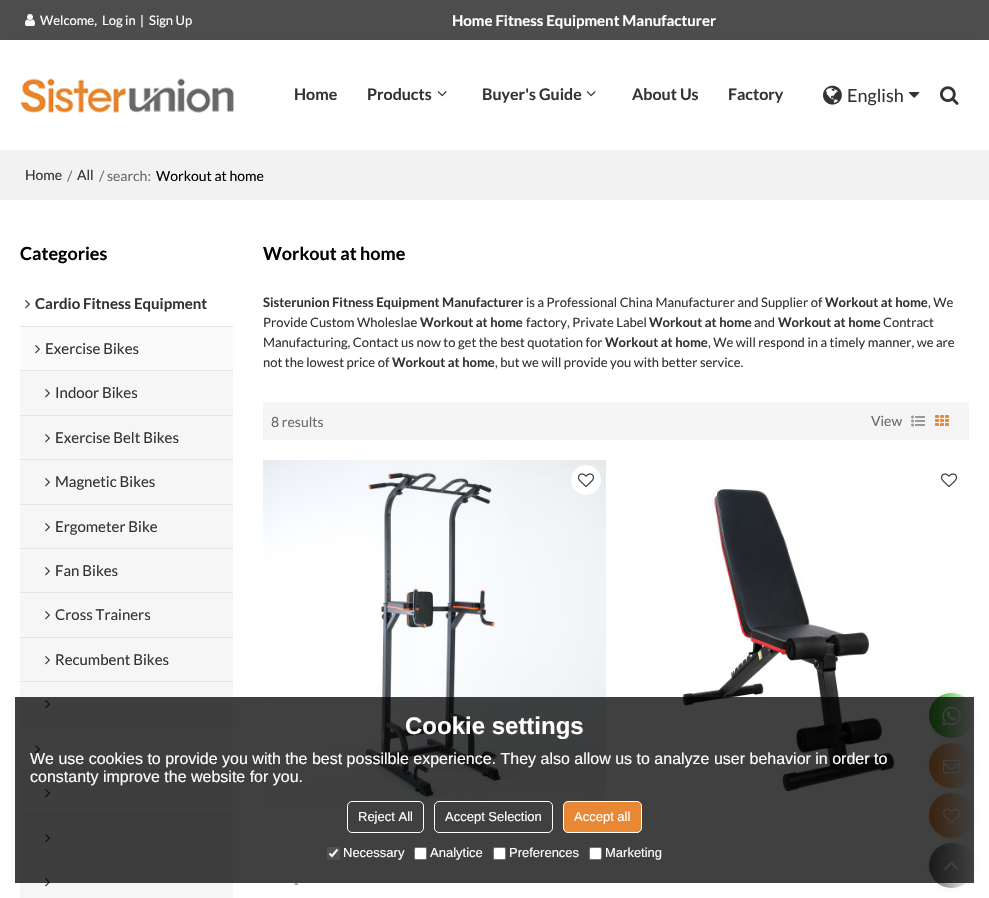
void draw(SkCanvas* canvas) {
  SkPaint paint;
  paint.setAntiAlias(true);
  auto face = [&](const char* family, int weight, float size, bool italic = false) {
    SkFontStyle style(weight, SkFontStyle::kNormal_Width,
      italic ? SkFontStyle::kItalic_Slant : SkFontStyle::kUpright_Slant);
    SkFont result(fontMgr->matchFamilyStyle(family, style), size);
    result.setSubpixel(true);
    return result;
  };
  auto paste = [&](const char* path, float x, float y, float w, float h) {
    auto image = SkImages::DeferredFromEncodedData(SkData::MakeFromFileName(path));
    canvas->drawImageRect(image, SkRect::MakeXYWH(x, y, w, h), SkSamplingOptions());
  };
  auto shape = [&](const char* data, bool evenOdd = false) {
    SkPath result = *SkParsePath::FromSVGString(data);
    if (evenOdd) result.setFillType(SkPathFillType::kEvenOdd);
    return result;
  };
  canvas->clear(0xffffffff);
  paint.setColor(0xff4d4d4d);
  canvas->drawRect(SkRect::MakeXYWH(0, 0, 989, 40), paint);
  canvas->save();
  canvas->clipRect(SkRect::MakeXYWH(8, 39, 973, 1));
  paint.setColor(0x1a000000);
  paint.setMaskFilter(SkMaskFilter::MakeBlur(kNormal_SkBlurStyle, 7.5f));
  canvas->drawRect(SkRect::MakeXYWH(0, 45, 989, 110), paint);
  paint.setMaskFilter(nullptr);
  canvas->restore();
  paste("img/1.png", 25, 14, 10, 12);
  paste("img/2.png", 20, 78, 214, 35);
  paste("img/3.png", 437, 91, 10, 6);
  paste("img/3.png", 586, 91, 10, 6);
  paste("img/4.png", 823, 85, 19, 20);
  paste("img/5.png", 909, 92, 11, 6);
  paste("img/6.png", 940, 86, 19, 19);
  paint.setColor(0xfff2f2f2);
  canvas->drawRect(SkRect::MakeXYWH(0, 150, 989, 50), paint);
  paint.setColor(0xffe5e5e5);
  canvas->drawRect(SkRect::MakeXYWH(20, 326, 213, 1), paint);
  paste("img/7.png", 25, 300, 5, 9);
  paint.setColor(0xfffafafa);
  canvas->drawRect(SkRect::MakeXYWH(20, 327, 213, 43), paint);
  paint.setColor(0xffe5e5e5);
  canvas->drawRect(SkRect::MakeXYWH(20, 370, 213, 1), paint);
  paste("img/8.png", 35, 345, 5, 9);
  paint.setColor(0xfff6f6f6);
  canvas->drawRect(SkRect::MakeXYWH(20, 371, 213, 44), paint);
  paint.setColor(0xffe5e5e5);
  canvas->drawRect(SkRect::MakeXYWH(20, 415, 213, 1), paint);
  paste("img/9.png", 45, 389, 5, 9);
  paint.setColor(0xfff6f6f6);
  canvas->drawRect(SkRect::MakeXYWH(20, 416, 213, 43), paint);
  paint.setColor(0xffe5e5e5);
  canvas->drawRect(SkRect::MakeXYWH(20, 459, 213, 1), paint);
  paste("img/9.png", 45, 434, 5, 9);
  paint.setColor(0xfff6f6f6);
  canvas->drawRect(SkRect::MakeXYWH(20, 460, 213, 44), paint);
  paint.setColor(0xffe5e5e5);
  canvas->drawRect(SkRect::MakeXYWH(20, 504, 213, 1), paint);
  paste("img/9.png", 45, 478, 5, 9);
  paint.setColor(0xfff6f6f6);
  canvas->drawRect(SkRect::MakeXYWH(20, 505, 213, 43), paint);
  paint.setColor(0xffe5e5e5);
  canvas->drawRect(SkRect::MakeXYWH(20, 548, 213, 1), paint);
  paste("img/9.png", 45, 523, 5, 9);
  paint.setColor(0xfff6f6f6);
  canvas->drawRect(SkRect::MakeXYWH(20, 549, 213, 43), paint);
  paint.setColor(0xffe5e5e5);
  canvas->drawRect(SkRect::MakeXYWH(20, 592, 213, 1), paint);
  paste("img/9.png", 45, 567, 5, 9);
  paint.setColor(0xfff6f6f6);
  canvas->drawRect(SkRect::MakeXYWH(20, 593, 213, 44), paint);
  paint.setColor(0xffe5e5e5);
  canvas->drawRect(SkRect::MakeXYWH(20, 637, 213, 1), paint);
  paste("img/9.png", 45, 611, 5, 9);
  paint.setColor(0xfff6f6f6);
  canvas->drawRect(SkRect::MakeXYWH(20, 638, 213, 43), paint);
  paint.setColor(0xffe5e5e5);
  canvas->drawRect(SkRect::MakeXYWH(20, 681, 213, 1), paint);
  paste("img/9.png", 45, 656, 5, 9);
  paint.setColor(0xfff6f6f6);
  canvas->drawRect(SkRect::MakeXYWH(20, 682, 213, 44), paint);
  paint.setColor(0xffe5e5e5);
  canvas->drawRect(SkRect::MakeXYWH(20, 726, 213, 1), paint);
  paste("img/9.png", 45, 700, 5, 9);
  paint.setColor(0xfffafafa);
  canvas->drawRect(SkRect::MakeXYWH(20, 727, 213, 43), paint);
  paint.setColor(0xffe5e5e5);
  canvas->drawRect(SkRect::MakeXYWH(20, 770, 213, 1), paint);
  paste("img/8.png", 35, 745, 5, 9);
  paint.setColor(0xfff6f6f6);
  canvas->drawRect(SkRect::MakeXYWH(20, 771, 213, 44), paint);
  paint.setColor(0xffe5e5e5);
  canvas->drawRect(SkRect::MakeXYWH(20, 815, 213, 1), paint);
  paste("img/9.png", 45, 789, 5, 9);
  paint.setColor(0xfff6f6f6);
  canvas->drawRect(SkRect::MakeXYWH(20, 816, 213, 43), paint);
  paint.setColor(0xffe5e5e5);
  canvas->drawRect(SkRect::MakeXYWH(20, 859, 213, 1), paint);
  paste("img/9.png", 45, 834, 5, 9);
  paint.setColor(0xfff6f6f6);
  canvas->drawRect(SkRect::MakeXYWH(20, 860, 213, 38), paint);
  paste("img/9.png", 45, 878, 5, 9);
  paint.setColor(0xfff5f5f5);
  canvas->drawRect(SkRect::MakeXYWH(263, 402, 706, 38), paint);
  paste("img/10.png", 911, 415, 14, 12);
  paste("img/11.png", 935, 415, 14, 11);
  paste("img/12.png", 941, 473, 16, 15);
  paste("img/13.png", 682, 488, 213, 305);
  paste("img/14.png", 263, 460, 343, 343);
  paint.setColor(0xffffffff);
  canvas->drawCircle(586, 480, 15, paint);
  paste("img/12.png", 578, 473, 16, 15);
  paint.setColor(0xffeeeeee);
  paint.setMaskFilter(SkMaskFilter::MakeBlur(kNormal_SkBlurStyle, 2.5f));
  canvas->drawRoundRect(SkRect::MakeXYWH(929, 693, 45, 45), 22.5f, 22.5f, paint);
  paint.setMaskFilter(nullptr);
  {
    const SkColor colors[] = {0xff29a61a, 0xffffffff};
    const float stops[] = {0, 1};
    const SkPoint ends[] = {{929, 716}, {974, 716}};
    paint.setShader(SkGradientShader::MakeLinear(ends, colors, stops, 2, SkTileMode::kClamp));
    paint.setAlpha(255);
  }
  canvas->drawCircle(951.5f, 715.5f, 22.5f, paint);
  paste("img/15.png", 942, 706, 19, 20);
  paint.setShader(nullptr);
  paint.setColor(0xffeeeeee);
  paint.setMaskFilter(SkMaskFilter::MakeBlur(kNormal_SkBlurStyle, 2.5f));
  canvas->drawRoundRect(SkRect::MakeXYWH(929, 743, 45, 45), 22.5f, 22.5f, paint);
  paint.setMaskFilter(nullptr);
  {
    const SkColor colors[] = {0xffe98834, 0xffffffff};
    const float stops[] = {0, 1};
    const SkPoint ends[] = {{929, 766}, {974, 766}};
    paint.setShader(SkGradientShader::MakeLinear(ends, colors, stops, 2, SkTileMode::kClamp));
    paint.setAlpha(255);
  }
  canvas->drawCircle(951.5f, 765.5f, 22.5f, paint);
  paste("img/16.png", 943, 759, 17, 15);
  paint.setShader(nullptr);
  paint.setColor(0xffeeeeee);
  paint.setMaskFilter(SkMaskFilter::MakeBlur(kNormal_SkBlurStyle, 2.5f));
  canvas->drawRoundRect(SkRect::MakeXYWH(929, 793, 45, 45), 22.5f, 22.5f, paint);
  paint.setMaskFilter(nullptr);
  {
    const SkColor colors[] = {0xffe98834, 0xffffffff};
    const float stops[] = {0, 1};
    const SkPoint ends[] = {{929, 816}, {974, 816}};
    paint.setShader(SkGradientShader::MakeLinear(ends, colors, stops, 2, SkTileMode::kClamp));
    paint.setAlpha(255);
  }
  canvas->drawCircle(951.5f, 815.5f, 22.5f, paint);
  paste("img/17.png", 943, 808, 17, 16);
  paint.setShader(nullptr);
  paint.setColor(0xffeeeeee);
  paint.setMaskFilter(SkMaskFilter::MakeBlur(kNormal_SkBlurStyle, 2.5f));
  canvas->drawRoundRect(SkRect::MakeXYWH(929, 843, 45, 45), 22.5f, 22.5f, paint);
  paint.setMaskFilter(nullptr);
  {
    const SkColor colors[] = {0xff666666, 0xffffffff};
    const float stops[] = {0, 1};
    const SkPoint ends[] = {{929, 866}, {974, 866}};
    paint.setShader(SkGradientShader::MakeLinear(ends, colors, stops, 2, SkTileMode::kClamp));
    paint.setAlpha(255);
  }
  canvas->drawCircle(951.5f, 865.5f, 22.5f, paint);
  paste("img/18.png", 944, 861, 15, 9);
  paint.setShader(nullptr);
  paint.setColor(0xbf000000);
  canvas->drawRect(SkRect::MakeXYWH(15, 697, 959, 186), paint);
  paint.setStroke(true);
  paint.setStrokeWidth(1);
  paint.setColor(0xffffffff);
  canvas->drawRoundRect(SkRect::MakeXYWH(347.5f, 801.5f, 76, 31), 4.5f, 4.5f, paint);
  canvas->drawRoundRect(SkRect::MakeXYWH(434.5f, 801.5f, 118, 31), 4.5f, 4.5f, paint);
  paint.setStroke(false);
  paint.setColor(0xffe98834);
  canvas->drawRoundRect(SkRect::MakeXYWH(563.5f, 801.5f, 78, 31), 4.5f, 4.5f, paint);
  paint.setStroke(true);
  paint.setColor(0xffffffff);
  canvas->drawRoundRect(SkRect::MakeXYWH(563.5f, 801.5f, 78, 31), 4.5f, 4.5f, paint);
  paint.setStroke(false);
  paint.setColor(0x4d767676);
  canvas->drawRoundRect(SkRect::MakeXYWH(327, 847, 13, 13), 2, 2, paint);
  paint.setStroke(true);
  paint.setStrokeWidth(2.1f);
  paint.setColor(0xffffffff);
  canvas->drawPath(shape("M329.5 853.5L332 856L337.5 849.5"), paint);
  paint.setStroke(false);
  canvas->drawRoundRect(SkRect::MakeXYWH(414.5f, 847.5f, 12, 12), 1.5f, 1.5f, paint);
  paint.setStroke(true);
  paint.setStrokeWidth(1);
  paint.setColor(0xff767676);
  canvas->drawRoundRect(SkRect::MakeXYWH(414.5f, 847.5f, 12, 12), 1.5f, 1.5f, paint);
  paint.setStroke(false);
  paint.setColor(0xffffffff);
  canvas->drawRoundRect(SkRect::MakeXYWH(493.5f, 847.5f, 12, 12), 1.5f, 1.5f, paint);
  paint.setStroke(true);
  paint.setColor(0xff767676);
  canvas->drawRoundRect(SkRect::MakeXYWH(493.5f, 847.5f, 12, 12), 1.5f, 1.5f, paint);
  paint.setStroke(false);
  paint.setColor(0xffffffff);
  canvas->drawRoundRect(SkRect::MakeXYWH(589.5f, 847.5f, 12, 12), 1.5f, 1.5f, paint);
  paint.setStroke(true);
  paint.setColor(0xff767676);
  canvas->drawRoundRect(SkRect::MakeXYWH(589.5f, 847.5f, 12, 12), 1.5f, 1.5f, paint);
  auto f0 = face("Lato", 400, 13);
  paint.setStroke(false);
  paint.setColor(0xffffffff);
  {
    const struct { const char* s; float x, y; } items[] = {
      {"Welcome,", 40, 25},
      {"Log in", 102, 25},
      {"|", 140, 25},
      {"Sign Up", 149, 25},
    };
    for (auto [s, x, y] : items) {
      canvas->drawString(s, x, y, f0, paint);
    }
  }
  auto f1 = face("Lato", 700, 15);
  canvas->drawString("Home Fitness Equipment Manufacturer", 452, 26, f1, paint);
  auto f2 = face("Lato", 700, 16);
  paint.setColor(0xff333333);
  {
    const struct { const char* s; float x, y; } items[] = {
      {"Home", 294, 100},
      {"Products", 367, 100},
      {"Buyer's Guide", 482, 100},
      {"About Us", 632, 100},
      {"Factory", 728, 100},
    };
    for (auto [s, x, y] : items) {
      canvas->drawString(s, x, y, f2, paint);
    }
  }
  auto f3 = face("Lato", 400, 18);
  canvas->drawString("English", 847, 102, f3, paint);
  auto f4 = face("Lato", 400, 14);
  canvas->drawString("Home", 25, 180, f4, paint);
  paint.setColor(0xff6a6a6a);
  canvas->drawString("/", 67, 181, f4, paint);
  paint.setColor(0xff333333);
  canvas->drawString("All", 77, 180, f4, paint);
  paint.setColor(0xff6a6a6a);
  canvas->drawString("/ search:", 99, 181, f4, paint);
  paint.setColor(0xff000000);
  canvas->drawString("Workout at home", 156, 181, f4, paint);
  auto f5 = face("Lato", 700, 18);
  canvas->drawString("Categories", 20, 260, f5, paint);
  paint.setColor(0xff333333);
  canvas->drawString("Cardio Fitness Equipment", 35, 309, f1, paint);
  auto f6 = face("Lato", 400, 15);
  {
    const struct { const char* s; float x, y; } items[] = {
      {"Exercise Bikes", 45, 354},
      {"Indoor Bikes", 55, 398},
      {"Exercise Belt Bikes", 55, 443},
      {"Magnetic Bikes", 55, 487},
      {"Ergometer Bike", 55, 532},
      {"Fan Bikes", 55, 576},
      {"Cross Trainers", 55, 620},
      {"Recumbent Bikes", 55, 665},
    };
    for (auto [s, x, y] : items) {
      canvas->drawString(s, x, y, f6, paint);
    }
  }
  paint.setColor(0xff000000);
  canvas->drawString("Workout at home", 263, 260, f5, paint);
  auto f7 = face("Lato", 700, 13);
  paint.setColor(0xff333333);
  canvas->drawString("Sisterunion Fitness Equipment Manufacturer", 263, 307, f7, paint);
  canvas->drawString("is a Professional China Manufacturer and Supplier of", 526, 307, f0, paint);
  canvas->drawString("Workout at home", 825, 307, f7, paint);
  canvas->drawString(", We", 928, 307, f0, paint);
  canvas->drawString("Provide Custom Wholeslae", 263, 327, f0, paint);
  canvas->drawString("Workout at home", 420, 327, f7, paint);
  canvas->drawString("factory, Private Label", 526, 327, f0, paint);
  canvas->drawString("Workout at home", 649, 327, f7, paint);
  canvas->drawString("and", 754, 327, f0, paint);
  canvas->drawString("Workout at home", 778, 327, f7, paint);
  canvas->drawString("Contract", 883, 327, f0, paint);
  canvas->drawString("Manufacturing, Contact us now to get the best quotation for", 263, 347, f0, paint);
  canvas->drawString("Workout at home", 605, 347, f7, paint);
  canvas->drawString(", We will respond in a timely manner, we are", 708, 347, f0, paint);
  canvas->drawString("not the lowest price of", 263, 367, f0, paint);
  canvas->drawString("Workout at home", 392, 367, f7, paint);
  canvas->drawString(", but we will provide you with better service.", 495, 367, f0, paint);
  paint.setColor(0xff6a6a6a);
  canvas->drawString("8 results", 271, 427, f4, paint);
  canvas->drawString("View", 871, 426, f4, paint);
  canvas->drawString("-", 294, 888, f0, paint);
  auto f8 = face("Liberation Sans", 700, 24);
  paint.setColor(0xffffffff);
  canvas->drawString("Cookie settings", 405, 734, f8, paint);
  auto f9 = face("Liberation Sans", 400, 16);
  canvas->drawString("We use cookies to provide you with the best possilble experience. They also allow us to analyze user behavior in order to", 30, 764, f9, paint);
  canvas->drawString("constanty improve the website for you.", 30, 782, f9, paint);
  auto f10 = face("Liberation Sans", 400, 13);
  {
    const struct { const char* s; float x, y; } items[] = {
      {"Reject All", 358, 821},
      {"Accept Selection", 445, 821},
      {"Accept all", 574, 821},
      {"Necessary", 343, 857},
      {"Analytice", 430, 857},
      {"Preferences", 509, 857},
      {"Marketing", 605, 857},
    };
    for (auto [s, x, y] : items) {
      canvas->drawString(s, x, y, f10, paint);
    }
  }
}
